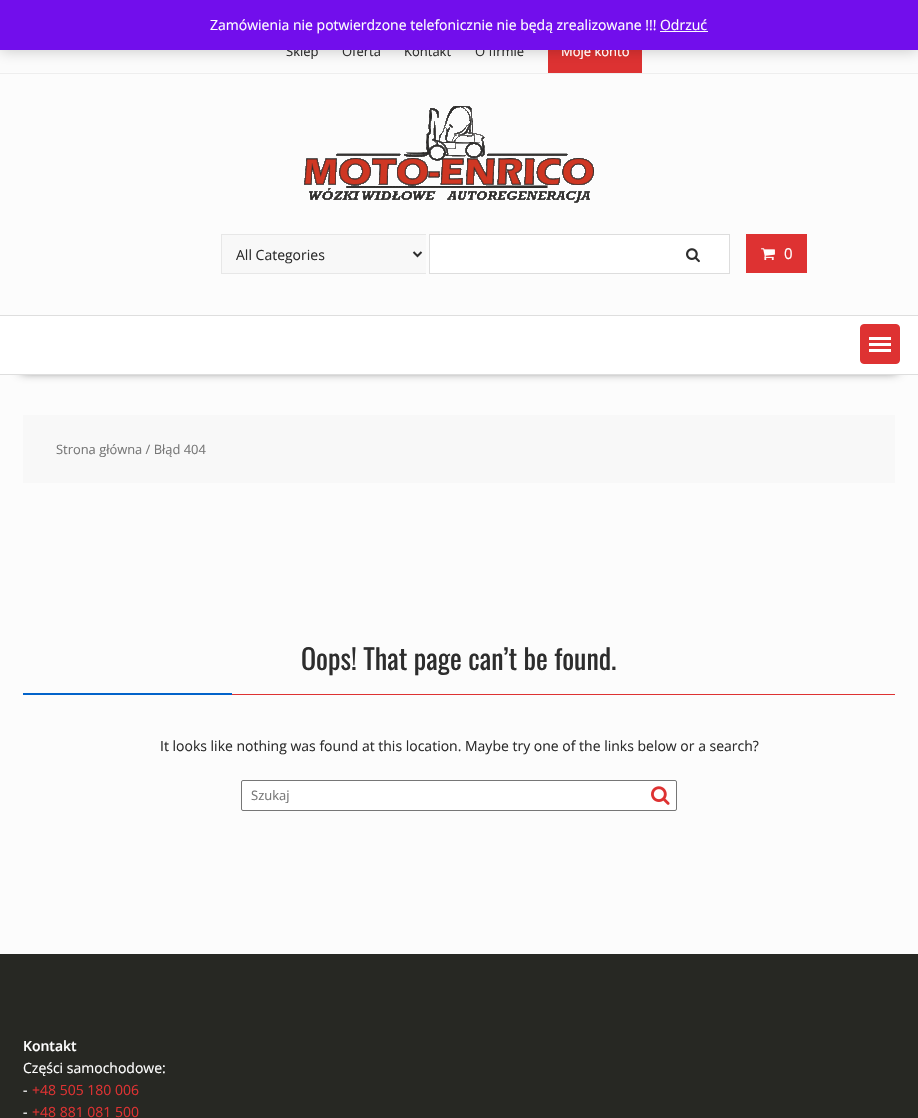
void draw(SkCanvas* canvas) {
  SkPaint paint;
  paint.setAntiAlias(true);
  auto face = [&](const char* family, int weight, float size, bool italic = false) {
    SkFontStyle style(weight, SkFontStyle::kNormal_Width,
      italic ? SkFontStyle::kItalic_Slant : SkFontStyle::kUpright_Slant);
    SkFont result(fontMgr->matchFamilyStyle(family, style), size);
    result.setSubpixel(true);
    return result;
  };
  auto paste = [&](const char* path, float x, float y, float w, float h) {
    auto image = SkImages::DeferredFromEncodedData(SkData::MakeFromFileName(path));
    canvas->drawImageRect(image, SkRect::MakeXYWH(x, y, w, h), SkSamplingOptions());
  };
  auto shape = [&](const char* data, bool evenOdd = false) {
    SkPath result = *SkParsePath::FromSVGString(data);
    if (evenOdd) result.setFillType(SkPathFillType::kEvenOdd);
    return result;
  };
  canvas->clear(0xfffcfcfc);
  paint.setColor(0xffde3232);
  canvas->drawRect(SkRect::MakeXYWH(548, 50, 94, 23), paint);
  paint.setColor(0x33000000);
  paint.setMaskFilter(SkMaskFilter::MakeBlur(kNormal_SkBlurStyle, 7));
  canvas->drawRect(SkRect::MakeXYWH(0, 1, 918, 50), paint);
  paint.setMaskFilter(nullptr);
  paint.setColor(0xffeeeeee);
  canvas->drawRect(SkRect::MakeXYWH(0, 73, 918, 1), paint);
  paste("img/1.png", 304, 106, 290, 97);
  paint.setColor(0xffffffff);
  canvas->drawRect(SkRect::MakeXYWH(429.5f, 234.5f, 300, 39), paint);
  paint.setStroke(true);
  paint.setStrokeWidth(1);
  paint.setColor(0xffdddddd);
  canvas->drawRect(SkRect::MakeXYWH(429.5f, 234.5f, 300, 39), paint);
  paint.setStroke(false);
  {
    const struct { float x, y, w, h; SkColor color; } items[] = {
      {222, 235, 204, 38, 0xfff8f8f8},
      {221, 234, 205, 1, 0xffe7e7e7},
      {221, 273, 205, 1, 0xffe7e7e7},
      {221, 234, 1, 40, 0xffe7e7e7},
    };
    for (auto [x, y, w, h, color] : items) {
      paint.setColor(color);
      canvas->drawRect(SkRect::MakeXYWH(x, y, w, h), paint);
    }
  }
  paint.setStroke(true);
  paint.setStrokeWidth(2);
  paint.setColor(0xff2d2d2d);
  canvas->drawPath(shape("M413.5 252L417.5 256L421.5 252"), paint);
  paste("img/2.png", 686, 248, 14, 15);
  paint.setStroke(false);
  paint.setColor(0xffde3232);
  canvas->drawRect(SkRect::MakeXYWH(746, 234, 61, 39), paint);
  paste("img/3.png", 761, 248, 14, 13);
  paint.setColor(0xbf000000);
  paint.setMaskFilter(SkMaskFilter::MakeBlur(kNormal_SkBlurStyle, 5.5f));
  canvas->drawRect(SkRect::MakeXYWH(21, 353, 876, 18), paint);
  paint.setMaskFilter(nullptr);
  {
    const struct { float x, y, w, h; SkColor color; } items[] = {
      {0, 316, 918, 58, 0xffffffff},
      {0, 315, 918, 1, 0xffdedede},
      {0, 374, 918, 1, 0xffdedede},
    };
    for (auto [x, y, w, h, color] : items) {
      paint.setColor(color);
      canvas->drawRect(SkRect::MakeXYWH(x, y, w, h), paint);
    }
  }
  paint.setColor(0xffde3232);
  canvas->drawRoundRect(SkRect::MakeXYWH(860.5f, 324.5f, 39, 39), 3.5f, 3.5f, paint);
  paint.setStroke(true);
  paint.setStrokeWidth(1);
  canvas->drawRoundRect(SkRect::MakeXYWH(860.5f, 324.5f, 39, 39), 3.5f, 3.5f, paint);
  paint.setStroke(false);
  {
    const struct { float x, y, w, h; SkColor color; } items[] = {
      {869, 349, 22, 3, 0xffffffff},
      {869, 343, 22, 3, 0xffffffff},
      {869, 337, 22, 3, 0xffffffff},
      {23, 415, 872, 68, 0xfff8f8f8},
      {232, 694, 663, 1, 0xffde3232},
      {23, 693, 209, 2, 0xff0263ca},
    };
    for (auto [x, y, w, h, color] : items) {
      paint.setColor(color);
      canvas->drawRect(SkRect::MakeXYWH(x, y, w, h), paint);
    }
  }
  paint.setColor(0xffffffff);
  canvas->drawRoundRect(SkRect::MakeXYWH(241.5f, 780.5f, 435, 30), 1.5f, 1.5f, paint);
  paint.setStroke(true);
  paint.setColor(0xff767676);
  canvas->drawRoundRect(SkRect::MakeXYWH(241.5f, 780.5f, 435, 30), 1.5f, 1.5f, paint);
  paste("img/4.png", 651, 786, 19, 19);
  paint.setStroke(false);
  paint.setColor(0xff272823);
  canvas->drawRect(SkRect::MakeXYWH(0, 954, 918, 164), paint);
  auto f0 = face("Open Sans", 400, 13);
  paint.setColor(0xff2d2d2d);
  {
    const struct { const char* s; float x, y; } items[] = {
      {"Sklep", 286, 56},
      {"Oferta", 342, 56},
      {"Kontakt", 404, 56},
      {"O firmie", 475, 56},
    };
    for (auto [s, x, y] : items) {
      canvas->drawString(s, x, y, f0, paint);
    }
  }
  paint.setColor(0xffffffff);
  canvas->drawString("Moje konto", 561, 56, f0, paint);
  paint.setColor(0xff720eec);
  canvas->drawRect(SkRect::MakeXYWH(0, 0, 918, 50), paint);
  auto f1 = face("Open Sans", 400, 14);
  paint.setColor(0xffffffff);
  canvas->drawString("Zamówienia nie potwierdzone telefonicznie nie będą zrealizowane !!! Odrzuć", 210, 30, f1, paint);
  paint.setColor(0xfffcfbfe);
  canvas->drawRect(SkRect::MakeXYWH(660, 31, 48, 1), paint);
  paint.setColor(0xff2d2d2d);
  canvas->drawString("All Categories", 236, 260, f1, paint);
  auto f2 = face("Open Sans", 400, 15);
  paint.setColor(0xffffffff);
  canvas->drawString("0", 784, 259, f2, paint);
  auto f3 = face("Open Sans", 400, 12.9f);
  paint.setColor(0xff777777);
  canvas->drawString("Strona główna / Błąd 404", 56, 454, f3, paint);
  auto f4 = face("Oswald", 400, 28);
  paint.setColor(0xff2d2d2d);
  canvas->drawString("Oops! That page can’t be found.", 301, 670, f4, paint);
  canvas->drawString("It looks like nothing was found at this location. Maybe try one of the links below or a search?", 160, 751, f1, paint);
  paint.setColor(0xff777777);
  canvas->drawString("Szukaj", 251, 800, f0, paint);
  auto f5 = face("Open Sans", 600, 14);
  paint.setColor(0xffffffff);
  canvas->drawString("Kontakt", 23, 1051, f5, paint);
  canvas->drawString("Części samochodowe:", 23, 1073, f1, paint);
  canvas->drawString("-", 23, 1095, f1, paint);
  paint.setColor(0xffde3232);
  canvas->drawString("+48 505 180 006", 32, 1095, f1, paint);
  paint.setColor(0xffffffff);
  canvas->drawString("-", 23, 1117, f1, paint);
  paint.setColor(0xffde3232);
  canvas->drawString("+48 881 081 500", 32, 1117, f1, paint);
}
